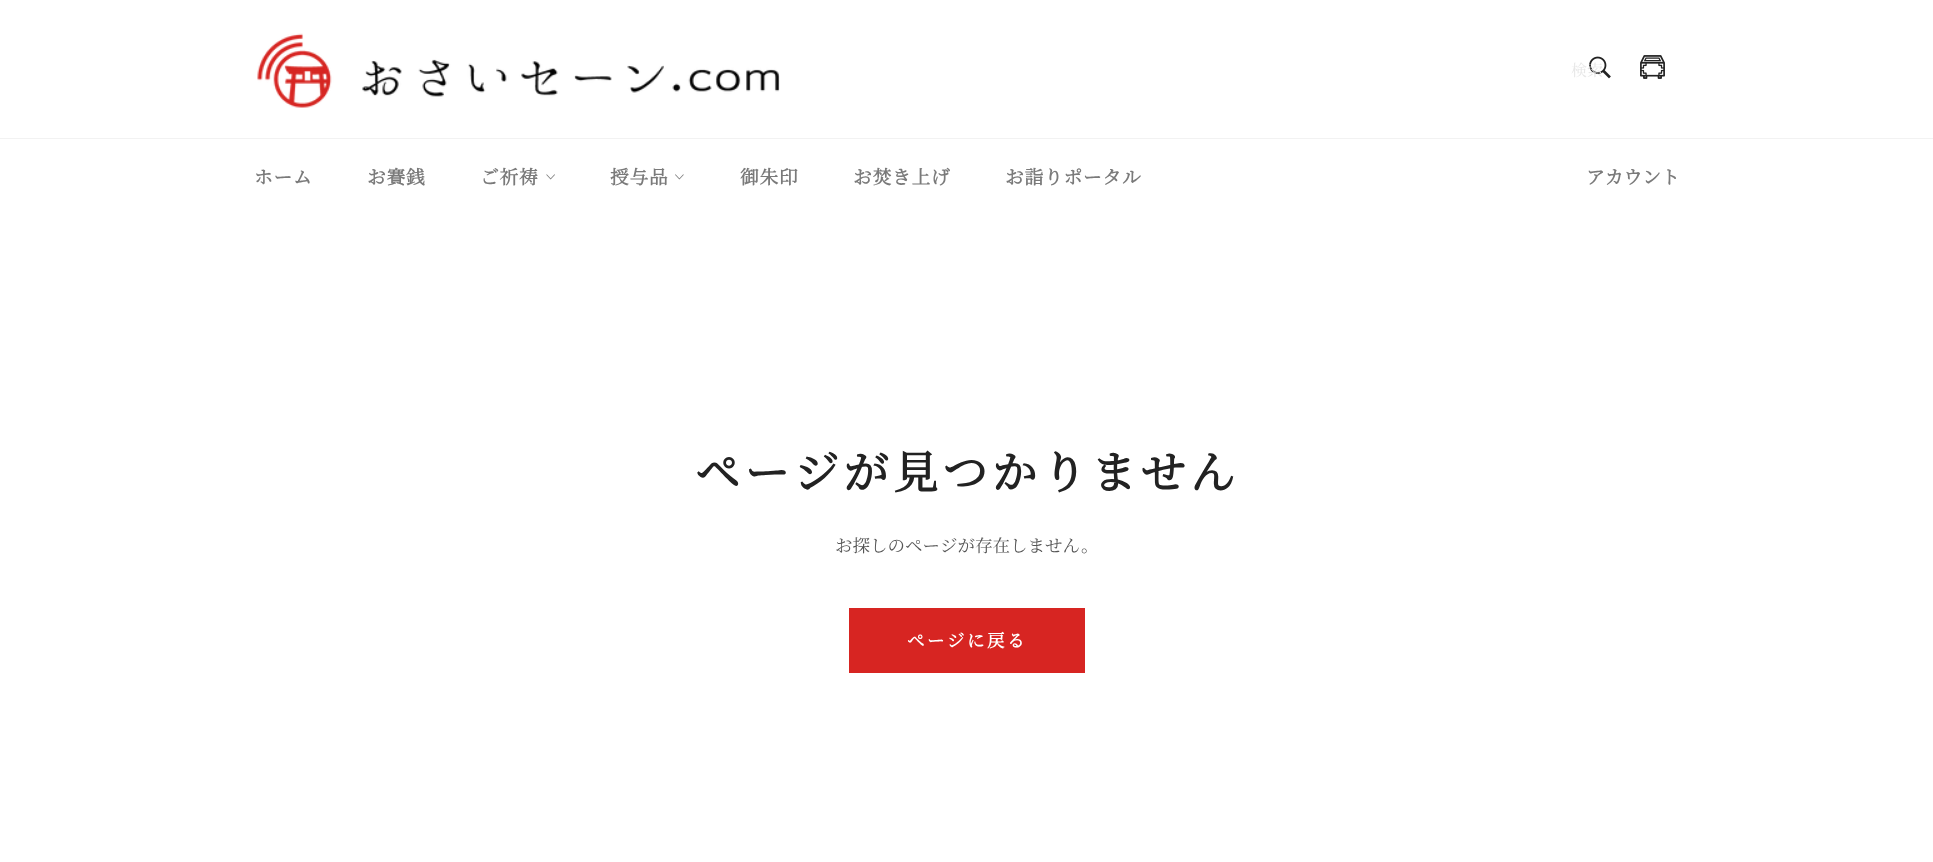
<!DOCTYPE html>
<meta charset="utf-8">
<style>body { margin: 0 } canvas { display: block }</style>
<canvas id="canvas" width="1933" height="862"></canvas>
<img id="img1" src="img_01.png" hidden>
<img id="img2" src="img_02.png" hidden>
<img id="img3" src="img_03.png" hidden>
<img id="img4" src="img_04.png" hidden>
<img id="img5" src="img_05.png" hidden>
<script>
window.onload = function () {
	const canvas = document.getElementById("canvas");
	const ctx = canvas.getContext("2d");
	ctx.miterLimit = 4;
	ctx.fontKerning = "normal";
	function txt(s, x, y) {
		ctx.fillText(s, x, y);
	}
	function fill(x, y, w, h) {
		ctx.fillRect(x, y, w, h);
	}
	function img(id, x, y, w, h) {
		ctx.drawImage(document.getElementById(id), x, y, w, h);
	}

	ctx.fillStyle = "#FFFFFF";
	fill(0, 0, 1933, 862);
	img("img1", 257, 33, 523, 75);
	img("img2", 1589, 56, 22, 23);
	img("img3", 1640, 55, 25, 24);
	ctx.fillStyle = "#F2F2F2";
	fill(0, 138, 1933, 1);
	img("img4", 546, 174, 9, 6);
	img("img5", 675, 174, 9, 6);
	ctx.fillStyle = "#D72522";
	fill(849, 608, 236, 65);
	ctx.font = "200 16px Noto Serif JP";
	ctx.fillStyle = "#E7E7E7";
	txt("検索", 1571, 76);
	ctx.letterSpacing = "0.75px";
	ctx.font = "bold 18.75px Noto Serif JP";
	ctx.fillStyle = "#7A7A7A";
	txt("ホーム", 254, 184);
	txt("お賽銭", 367, 184);
	txt("ご祈祷", 480, 184);
	txt("授与品", 610, 184);
	txt("御朱印", 740, 184);
	txt("お焚き上げ", 853, 184);
	txt("お詣りポータル", 1005, 184);
	ctx.letterSpacing = "0px";
	txt("アカウント", 1586, 184);
	ctx.letterSpacing = "4.5px";
	ctx.font = "bold 45px Noto Serif JP";
	ctx.fillStyle = "#222222";
	txt("ページが見つかりません", 695, 489);
	ctx.letterSpacing = "0px";
	ctx.font = "200 17.5px Noto Serif JP";
	ctx.fillStyle = "#555555";
	txt("お探しのページが存在しません。", 835, 552);
	ctx.letterSpacing = "2.5px";
	ctx.font = "bold 17.5px Noto Serif JP";
	ctx.fillStyle = "#FFFFFF";
	txt("ページに戻る", 907, 647);
};
</script>
